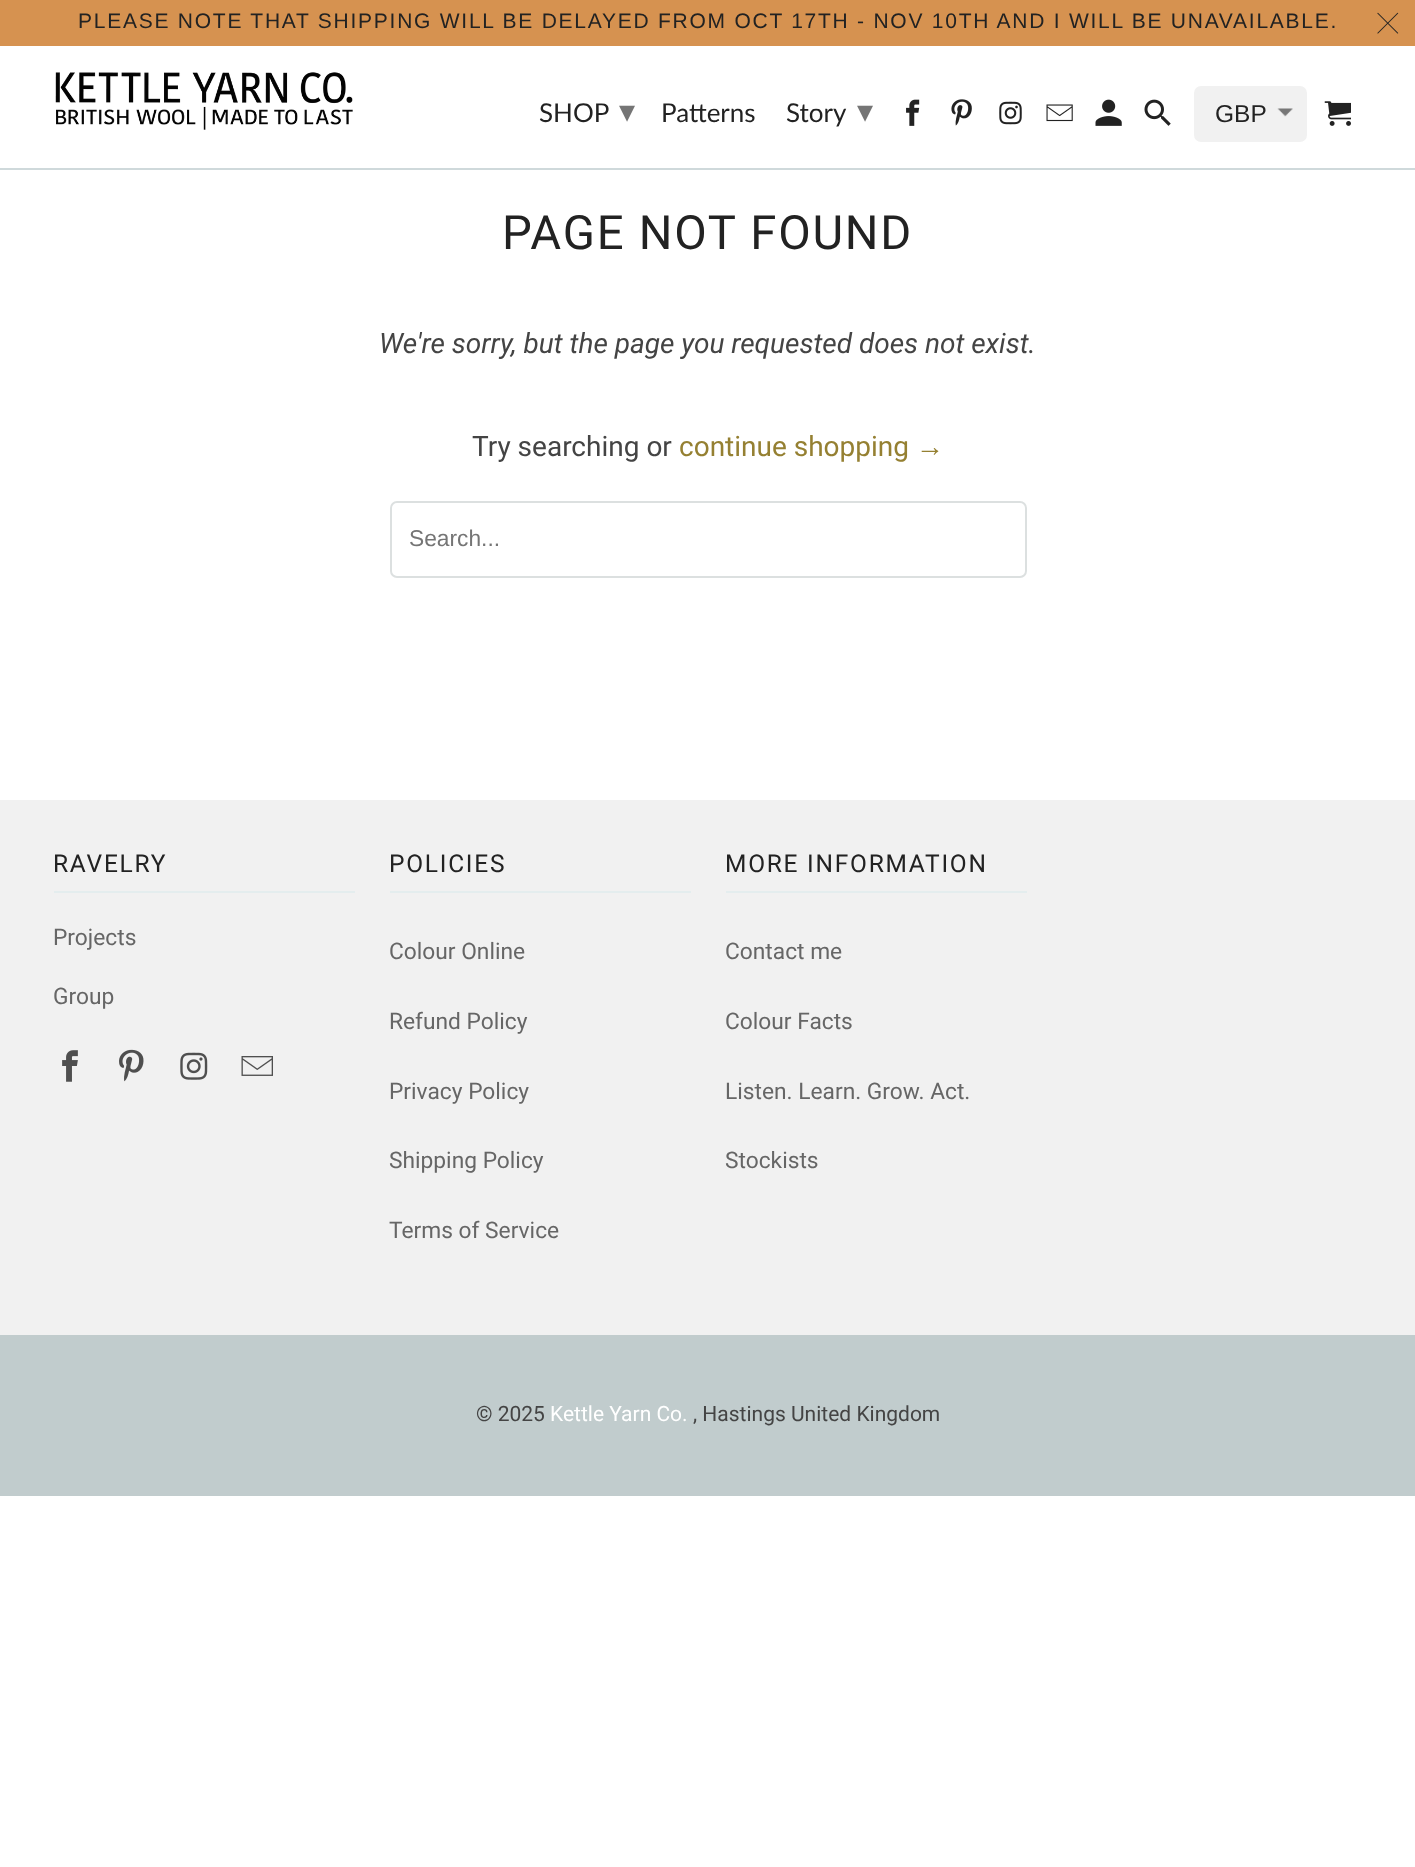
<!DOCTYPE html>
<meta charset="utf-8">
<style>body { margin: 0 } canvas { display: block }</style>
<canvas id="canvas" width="1415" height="1867"></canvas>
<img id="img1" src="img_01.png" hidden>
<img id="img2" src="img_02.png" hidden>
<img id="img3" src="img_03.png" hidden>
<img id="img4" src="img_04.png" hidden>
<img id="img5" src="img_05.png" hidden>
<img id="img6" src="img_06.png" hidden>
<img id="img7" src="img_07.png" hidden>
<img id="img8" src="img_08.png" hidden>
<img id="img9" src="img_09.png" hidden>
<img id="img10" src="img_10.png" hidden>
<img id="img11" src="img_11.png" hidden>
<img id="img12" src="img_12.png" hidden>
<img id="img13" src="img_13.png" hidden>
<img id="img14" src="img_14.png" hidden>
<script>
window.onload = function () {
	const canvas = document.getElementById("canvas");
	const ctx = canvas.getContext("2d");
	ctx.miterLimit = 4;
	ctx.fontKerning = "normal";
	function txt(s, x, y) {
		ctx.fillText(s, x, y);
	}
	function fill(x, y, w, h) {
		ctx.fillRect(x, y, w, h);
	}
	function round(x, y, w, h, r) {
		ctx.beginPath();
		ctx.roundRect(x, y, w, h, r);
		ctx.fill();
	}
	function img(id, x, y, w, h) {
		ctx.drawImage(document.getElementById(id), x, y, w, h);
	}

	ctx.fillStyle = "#FFFFFF";
	fill(0, 0, 1415, 1867);
	ctx.fillStyle = "#CFD9DB";
	fill(0, 168, 1415, 2);
	ctx.fillStyle = "#D69250";
	fill(0, 0, 1415, 46);
	img("img1", 1377, 12, 22, 22);
	img("img2", 55, 72, 298, 58);
	img("img3", 906, 99, 14, 27);
	img("img4", 951, 99, 21, 27);
	img("img5", 999, 101, 23, 24);
	img("img6", 1046, 104, 27, 18);
	img("img7", 1095, 99, 27, 27);
	img("img8", 1144, 99, 27, 27);
	ctx.fillStyle = "#F1F1F1";
	round(1194, 86, 113, 56, 7);
	img("img9", 1277, 108, 16, 9);
	img("img10", 1324, 101, 27, 25);
	ctx.beginPath();
	ctx.roundRect(391, 502, 635, 75, 6);
	ctx.strokeStyle = "#DCE0E0";
	ctx.lineWidth = 2;
	ctx.stroke();
	fill(0, 800, 1415, 535);
	ctx.fillStyle = "#E4EDEE";
	fill(54, 891, 301, 2);
	img("img11", 62, 1050, 16, 32);
	img("img12", 119, 1049, 25, 33);
	img("img13", 180, 1052, 28, 28);
	img("img14", 241, 1056, 32, 20);
	fill(390, 891, 301, 2);
	fill(726, 891, 301, 2);
	ctx.fillStyle = "#C1CCCD";
	fill(0, 1335, 1415, 161);
	ctx.letterSpacing = "1.75px";
	ctx.font = "21px Liberation Sans";
	ctx.fillStyle = "#222222";
	txt("PLEASE NOTE THAT SHIPPING WILL BE DELAYED FROM OCT 17TH - NOV 10TH AND I WILL BE UNAVAILABLE.", 78, 28);
	ctx.letterSpacing = "0px";
	ctx.font = "26px Lato";
	txt("SHOP", 539, 122);
	ctx.font = "32px DejaVu Sans";
	ctx.fillStyle = "#757575";
	txt("▾", 619, 122);
	ctx.font = "26px Lato";
	ctx.fillStyle = "#222222";
	txt("Patterns", 661, 122);
	txt("Story", 786, 122);
	ctx.font = "32px DejaVu Sans";
	ctx.fillStyle = "#757575";
	txt("▾", 857, 122);
	ctx.font = "24.5px Liberation Sans";
	ctx.fillStyle = "#222222";
	txt("GBP", 1215, 122);
	ctx.letterSpacing = "1.75px";
	ctx.font = "47.25px Roboto";
	txt("PAGE NOT FOUND", 502, 249);
	ctx.letterSpacing = "0px";
	ctx.font = "italic 28px Roboto";
	ctx.fillStyle = "#444444";
	txt("We're sorry, but the page you requested does not exist.", 379, 353);
	ctx.font = "28px Roboto";
	txt("Try searching or", 472, 456);
	ctx.fillStyle = "#958032";
	txt("continue shopping", 679, 456);
	ctx.font = "28px Liberation Sans";
	txt("→", 916, 456);
	ctx.font = "22.75px Liberation Sans";
	ctx.fillStyle = "#757575";
	txt("Search...", 409, 546);
	ctx.letterSpacing = "1.75px";
	ctx.font = "24.5px Roboto";
	ctx.fillStyle = "#222222";
	txt("RAVELRY", 53, 872);
	ctx.letterSpacing = "0px";
	ctx.font = "22.75px Roboto";
	ctx.fillStyle = "#666666";
	txt("Projects", 53, 945);
	txt("Group", 53, 1004);
	ctx.letterSpacing = "1.75px";
	ctx.font = "24.5px Roboto";
	ctx.fillStyle = "#222222";
	txt("POLICIES", 389, 872);
	ctx.letterSpacing = "0px";
	ctx.font = "22.75px Roboto";
	ctx.fillStyle = "#666666";
	txt("Colour Online", 389, 959);
	txt("Refund Policy", 389, 1029);
	txt("Privacy Policy", 389, 1099);
	txt("Shipping Policy", 389, 1168);
	txt("Terms of Service", 389, 1238);
	ctx.letterSpacing = "1.75px";
	ctx.font = "24.5px Roboto";
	ctx.fillStyle = "#222222";
	txt("MORE INFORMATION", 725, 872);
	ctx.letterSpacing = "0px";
	ctx.font = "22.75px Roboto";
	ctx.fillStyle = "#666666";
	txt("Contact me", 725, 959);
	txt("Colour Facts", 725, 1029);
	txt("Listen. Learn. Grow. Act.", 725, 1099);
	txt("Stockists", 725, 1168);
	ctx.font = "21px Roboto";
	ctx.fillStyle = "#444444";
	txt("© 2025", 476, 1421);
	ctx.fillStyle = "#FFFFFF";
	txt("Kettle Yarn Co.", 550, 1421);
	ctx.fillStyle = "#444444";
	txt(", Hastings United Kingdom", 693, 1421);
};
</script>
